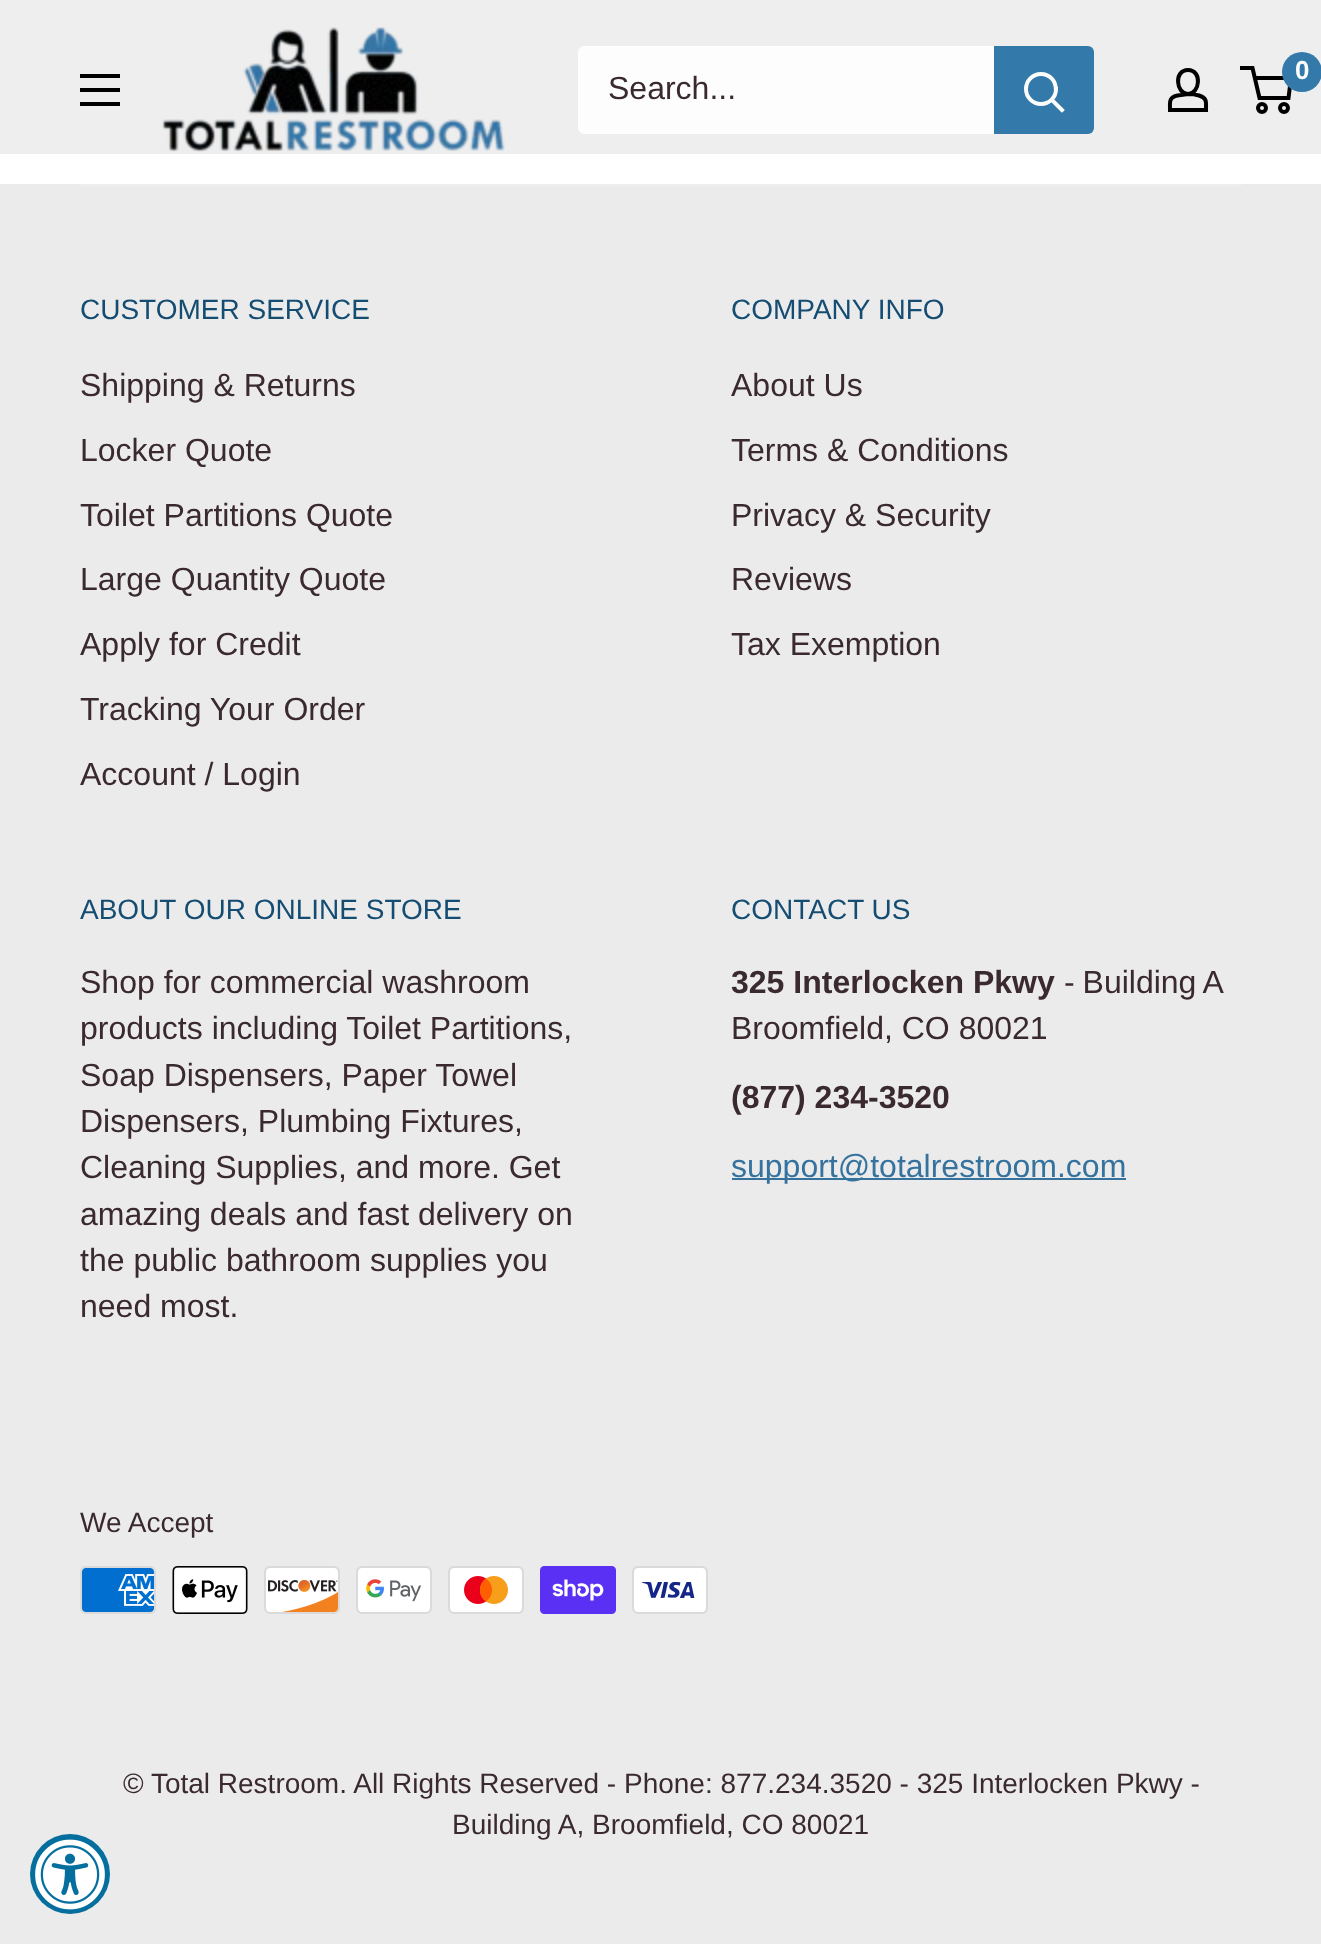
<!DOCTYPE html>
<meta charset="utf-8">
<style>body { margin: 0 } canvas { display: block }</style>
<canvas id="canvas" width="1321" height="1944"></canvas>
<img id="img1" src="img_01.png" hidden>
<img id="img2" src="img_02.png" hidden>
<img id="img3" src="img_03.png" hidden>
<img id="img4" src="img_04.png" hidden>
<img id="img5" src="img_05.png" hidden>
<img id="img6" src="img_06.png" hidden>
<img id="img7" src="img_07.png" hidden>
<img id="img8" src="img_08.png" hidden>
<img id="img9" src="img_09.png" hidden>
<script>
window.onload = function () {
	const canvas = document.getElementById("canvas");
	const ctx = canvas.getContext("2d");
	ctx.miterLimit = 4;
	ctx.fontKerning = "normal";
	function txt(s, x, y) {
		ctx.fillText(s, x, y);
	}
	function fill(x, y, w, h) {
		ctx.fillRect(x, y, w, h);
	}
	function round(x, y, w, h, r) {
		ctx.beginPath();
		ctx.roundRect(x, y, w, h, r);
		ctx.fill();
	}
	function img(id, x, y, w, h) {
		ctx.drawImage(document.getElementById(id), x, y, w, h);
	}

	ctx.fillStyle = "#FFFFFF";
	fill(0, 0, 1321, 1944);
	ctx.fillStyle = "#EEEEEE";
	fill(0, 0, 1321, 154);
	img("img1", 162, 27, 343, 125);
	ctx.beginPath();
	ctx.moveTo(1188, 94);
	ctx.bezierCurveTo(1192, 94, 1195.5, 94.5, 1199, 95.5);
	ctx.bezierCurveTo(1207.5, 98, 1206, 102.5, 1206, 110);
	ctx.lineTo(1170, 110);
	ctx.bezierCurveTo(1170, 102, 1168.5, 97.5, 1177.5, 95.5);
	ctx.closePath();
	ctx.moveTo(1188, 94);
	ctx.bezierCurveTo(1176, 94, 1173.5, 70, 1188, 70);
	ctx.bezierCurveTo(1202.5, 70, 1200, 94, 1188, 94);
	ctx.closePath();
	ctx.strokeStyle = "#000000";
	ctx.lineWidth = 4;
	ctx.stroke();
	ctx.beginPath();
	ctx.arc(1262, 108, 4, 0, Math.PI * 2);
	ctx.stroke();
	ctx.beginPath();
	ctx.arc(1284, 108, 4, 0, Math.PI * 2);
	ctx.stroke();
	ctx.beginPath();
	ctx.moveTo(1254.5, 78);
	ctx.lineTo(1291, 78);
	ctx.lineTo(1288.5, 98);
	ctx.lineTo(1259.5, 98);
	ctx.lineTo(1252.5, 68);
	ctx.lineTo(1240, 68);
	ctx.stroke();
	ctx.fillStyle = "#3379A9";
	ctx.beginPath();
	ctx.arc(1302, 72, 20, 0, Math.PI * 2);
	ctx.fill();
	ctx.fillStyle = "#000000";
	ctx.beginPath();
	ctx.moveTo(80, 102);
	ctx.lineTo(120, 102);
	ctx.lineTo(120, 106);
	ctx.lineTo(80, 106);
	ctx.closePath();
	ctx.moveTo(80, 74);
	ctx.lineTo(120, 74);
	ctx.lineTo(120, 78);
	ctx.lineTo(80, 78);
	ctx.closePath();
	ctx.moveTo(80, 88);
	ctx.lineTo(120, 88);
	ctx.lineTo(120, 92);
	ctx.lineTo(80, 92);
	ctx.closePath();
	ctx.fill("evenodd");
	ctx.fillStyle = "#FDFDFD";
	round(578, 46, 516, 88, 6);
	ctx.fillStyle = "#3379A9";
	ctx.beginPath();
	ctx.roundRect(994, 46, 100, 88, [0, 6, 6, 0]);
	ctx.fill();
	ctx.beginPath();
	ctx.moveTo(1062, 110);
	ctx.lineTo(1052, 100);
	ctx.strokeStyle = "#FDFDFD";
	ctx.lineCap = "square";
	ctx.stroke();
	ctx.beginPath();
	ctx.arc(1041, 89, 15, 0, Math.PI * 2);
	ctx.stroke();
	ctx.fillStyle = "#EBEBEB";
	fill(0, 184, 1321, 1760);
	ctx.fillStyle = "#EEEEEE";
	fill(80, 184, 1162, 2);
	ctx.fillStyle = "#35739E";
	fill(732, 1178, 394, 2);
	img("img2", 80, 1566, 76, 48);
	img("img3", 172, 1566, 76, 48);
	img("img4", 264, 1566, 76, 48);
	img("img5", 356, 1566, 76, 48);
	img("img6", 448, 1566, 76, 48);
	img("img7", 540, 1566, 76, 48);
	img("img8", 632, 1566, 76, 48);
	ctx.fillStyle = "#046E9E";
	ctx.beginPath();
	ctx.arc(70, 1874, 40, 0, Math.PI * 2);
	ctx.fill();
	img("img9", 35, 1839, 70, 71);
	ctx.font = "bold 26px Liberation Sans";
	ctx.fillStyle = "#FDFDFD";
	txt("0", 1295, 79);
	ctx.font = "32px Liberation Sans";
	ctx.fillStyle = "#3A2A2F";
	txt("Search...", 608, 99);
	ctx.font = "28px Liberation Sans";
	ctx.fillStyle = "#154C72";
	txt("CUSTOMER SERVICE", 80, 319);
	ctx.font = "32px Liberation Sans";
	ctx.fillStyle = "#3A2A2F";
	txt("Shipping & Returns", 80, 396);
	txt("Locker Quote", 80, 461);
	txt("Toilet Partitions Quote", 80, 526);
	txt("Large Quantity Quote", 80, 590);
	txt("Apply for Credit", 80, 655);
	txt("Tracking Your Order", 80, 720);
	txt("Account / Login", 80, 785);
	ctx.font = "28px Liberation Sans";
	ctx.fillStyle = "#154C72";
	txt("COMPANY INFO", 731, 319);
	ctx.font = "32px Liberation Sans";
	ctx.fillStyle = "#3A2A2F";
	txt("About Us", 731, 396);
	txt("Terms & Conditions", 731, 461);
	txt("Privacy & Security", 731, 526);
	txt("Reviews", 731, 590);
	txt("Tax Exemption", 731, 655);
	ctx.font = "28px Liberation Sans";
	ctx.fillStyle = "#154C72";
	txt("ABOUT OUR ONLINE STORE", 80, 919);
	ctx.font = "32px Liberation Sans";
	ctx.fillStyle = "#3A2A2F";
	txt("Shop for commercial washroom", 80, 993);
	txt("products including Toilet Partitions,", 80, 1039);
	txt("Soap Dispensers, Paper Towel", 80, 1086);
	txt("Dispensers, Plumbing Fixtures,", 80, 1132);
	txt("Cleaning Supplies, and more. Get", 80, 1178);
	txt("amazing deals and fast delivery on", 80, 1225);
	txt("the public bathroom supplies you", 80, 1271);
	txt("need most.", 80, 1317);
	ctx.font = "28px Liberation Sans";
	ctx.fillStyle = "#154C72";
	txt("CONTACT US", 731, 919);
	ctx.font = "bold 32px Liberation Sans";
	ctx.fillStyle = "#3A2A2F";
	txt("325 Interlocken Pkwy", 731, 993);
	ctx.wordSpacing = "-1px";
	ctx.font = "32px Liberation Sans";
	txt("- Building A", 1064, 993);
	ctx.wordSpacing = "0px";
	txt("Broomfield, CO 80021", 731, 1039);
	ctx.font = "bold 32px Liberation Sans";
	txt("(877) 234-3520", 731, 1108);
	ctx.font = "32px Liberation Sans";
	ctx.fillStyle = "#35739E";
	txt("support@totalrestroom.com", 731, 1177);
	ctx.font = "28px Liberation Sans";
	ctx.fillStyle = "#3A2A2F";
	txt("We Accept", 80, 1532);
	txt("© Total Restroom. All Rights Reserved - Phone: 877.234.3520 - 325 Interlocken Pkwy -", 123, 1793);
	txt("Building A, Broomfield, CO 80021", 452, 1834);
};
</script>
